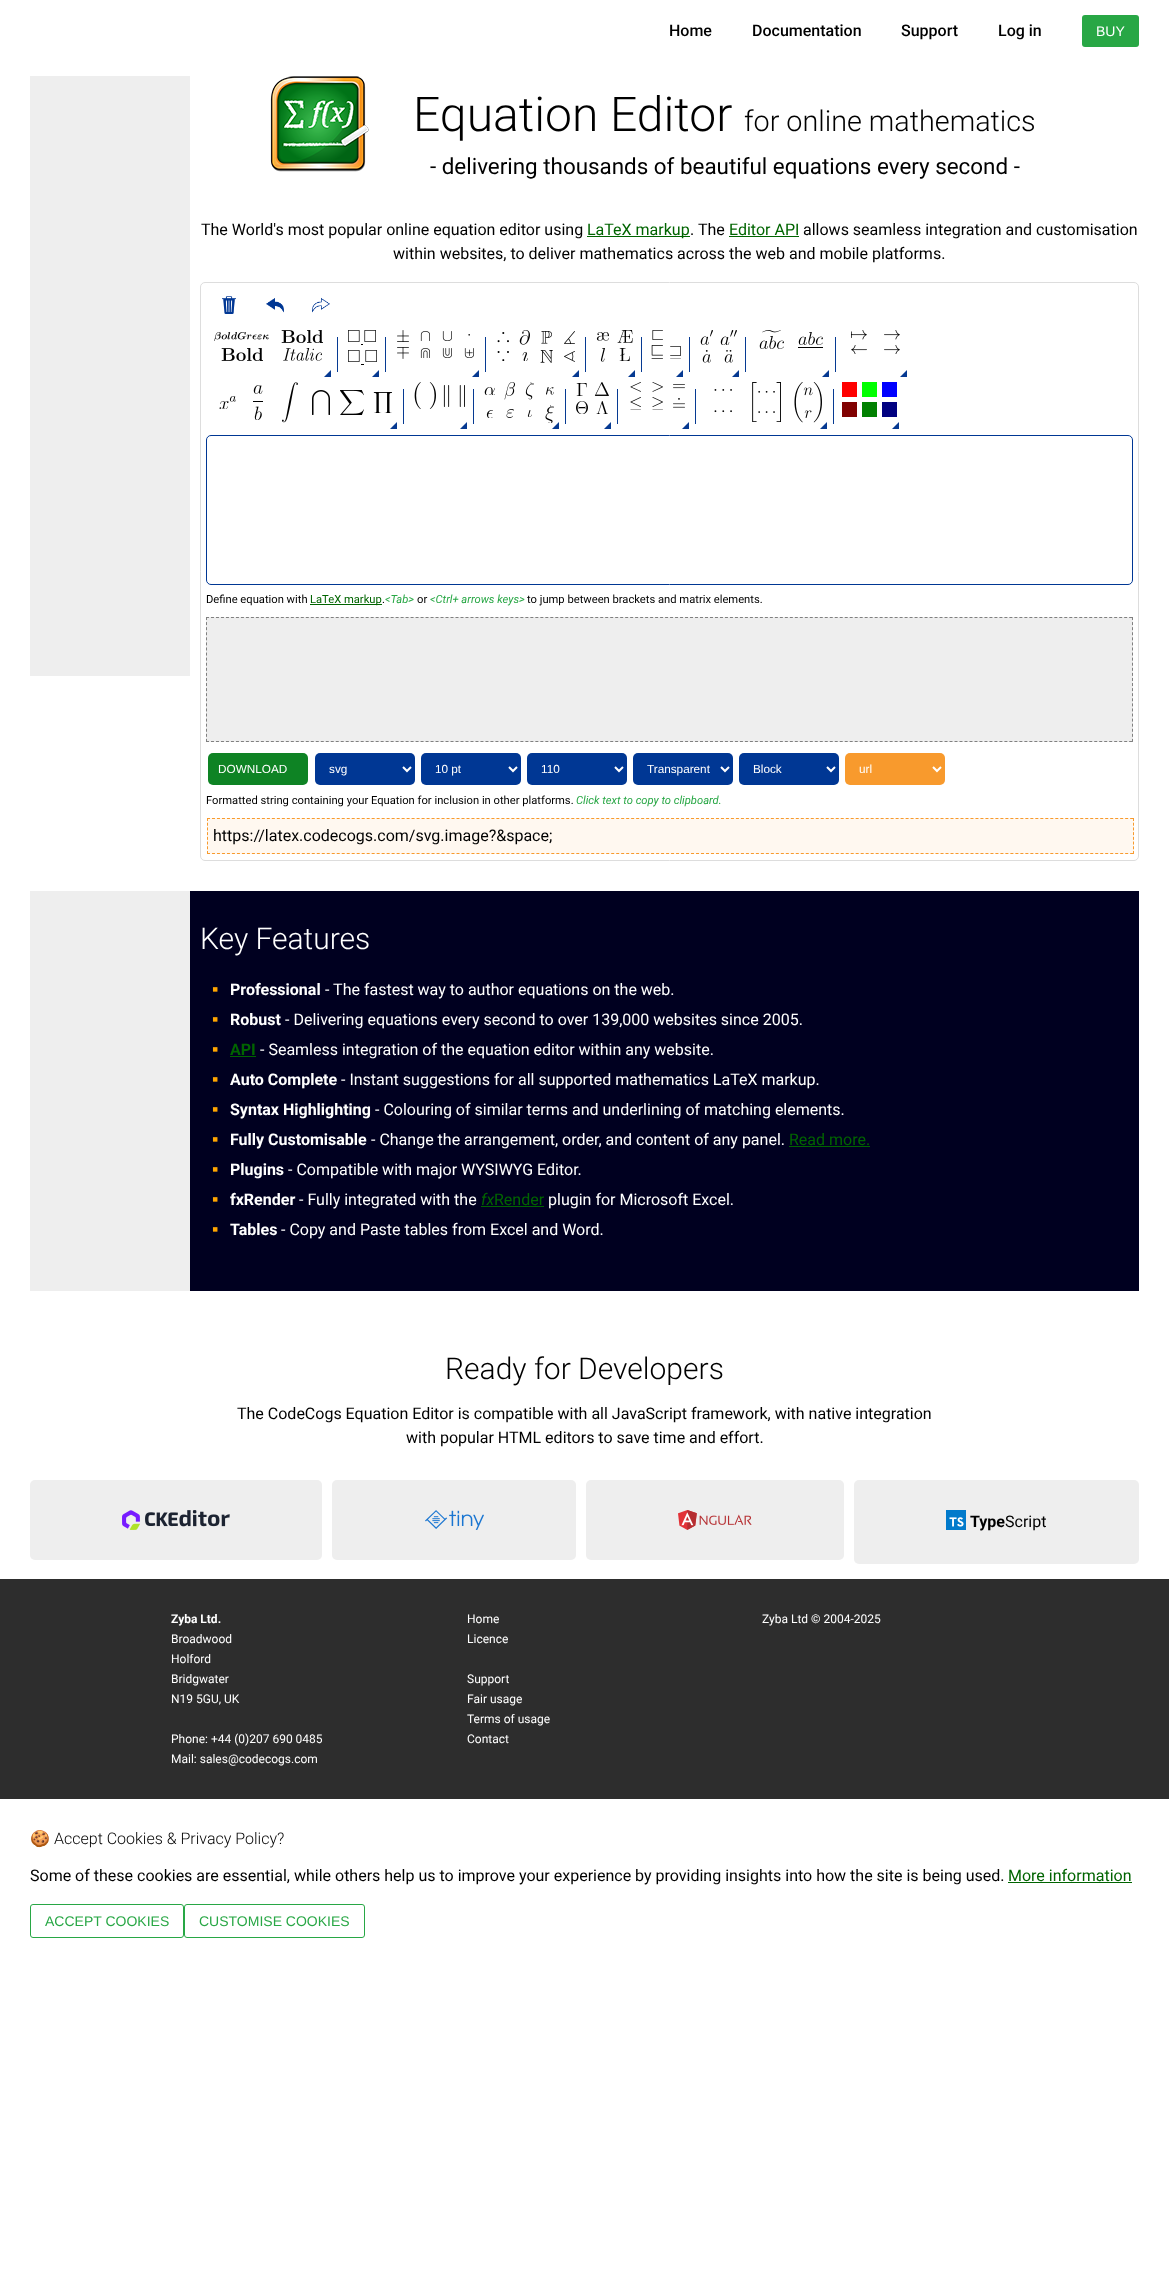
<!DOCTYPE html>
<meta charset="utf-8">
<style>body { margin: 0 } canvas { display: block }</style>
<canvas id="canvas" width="1169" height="2289"></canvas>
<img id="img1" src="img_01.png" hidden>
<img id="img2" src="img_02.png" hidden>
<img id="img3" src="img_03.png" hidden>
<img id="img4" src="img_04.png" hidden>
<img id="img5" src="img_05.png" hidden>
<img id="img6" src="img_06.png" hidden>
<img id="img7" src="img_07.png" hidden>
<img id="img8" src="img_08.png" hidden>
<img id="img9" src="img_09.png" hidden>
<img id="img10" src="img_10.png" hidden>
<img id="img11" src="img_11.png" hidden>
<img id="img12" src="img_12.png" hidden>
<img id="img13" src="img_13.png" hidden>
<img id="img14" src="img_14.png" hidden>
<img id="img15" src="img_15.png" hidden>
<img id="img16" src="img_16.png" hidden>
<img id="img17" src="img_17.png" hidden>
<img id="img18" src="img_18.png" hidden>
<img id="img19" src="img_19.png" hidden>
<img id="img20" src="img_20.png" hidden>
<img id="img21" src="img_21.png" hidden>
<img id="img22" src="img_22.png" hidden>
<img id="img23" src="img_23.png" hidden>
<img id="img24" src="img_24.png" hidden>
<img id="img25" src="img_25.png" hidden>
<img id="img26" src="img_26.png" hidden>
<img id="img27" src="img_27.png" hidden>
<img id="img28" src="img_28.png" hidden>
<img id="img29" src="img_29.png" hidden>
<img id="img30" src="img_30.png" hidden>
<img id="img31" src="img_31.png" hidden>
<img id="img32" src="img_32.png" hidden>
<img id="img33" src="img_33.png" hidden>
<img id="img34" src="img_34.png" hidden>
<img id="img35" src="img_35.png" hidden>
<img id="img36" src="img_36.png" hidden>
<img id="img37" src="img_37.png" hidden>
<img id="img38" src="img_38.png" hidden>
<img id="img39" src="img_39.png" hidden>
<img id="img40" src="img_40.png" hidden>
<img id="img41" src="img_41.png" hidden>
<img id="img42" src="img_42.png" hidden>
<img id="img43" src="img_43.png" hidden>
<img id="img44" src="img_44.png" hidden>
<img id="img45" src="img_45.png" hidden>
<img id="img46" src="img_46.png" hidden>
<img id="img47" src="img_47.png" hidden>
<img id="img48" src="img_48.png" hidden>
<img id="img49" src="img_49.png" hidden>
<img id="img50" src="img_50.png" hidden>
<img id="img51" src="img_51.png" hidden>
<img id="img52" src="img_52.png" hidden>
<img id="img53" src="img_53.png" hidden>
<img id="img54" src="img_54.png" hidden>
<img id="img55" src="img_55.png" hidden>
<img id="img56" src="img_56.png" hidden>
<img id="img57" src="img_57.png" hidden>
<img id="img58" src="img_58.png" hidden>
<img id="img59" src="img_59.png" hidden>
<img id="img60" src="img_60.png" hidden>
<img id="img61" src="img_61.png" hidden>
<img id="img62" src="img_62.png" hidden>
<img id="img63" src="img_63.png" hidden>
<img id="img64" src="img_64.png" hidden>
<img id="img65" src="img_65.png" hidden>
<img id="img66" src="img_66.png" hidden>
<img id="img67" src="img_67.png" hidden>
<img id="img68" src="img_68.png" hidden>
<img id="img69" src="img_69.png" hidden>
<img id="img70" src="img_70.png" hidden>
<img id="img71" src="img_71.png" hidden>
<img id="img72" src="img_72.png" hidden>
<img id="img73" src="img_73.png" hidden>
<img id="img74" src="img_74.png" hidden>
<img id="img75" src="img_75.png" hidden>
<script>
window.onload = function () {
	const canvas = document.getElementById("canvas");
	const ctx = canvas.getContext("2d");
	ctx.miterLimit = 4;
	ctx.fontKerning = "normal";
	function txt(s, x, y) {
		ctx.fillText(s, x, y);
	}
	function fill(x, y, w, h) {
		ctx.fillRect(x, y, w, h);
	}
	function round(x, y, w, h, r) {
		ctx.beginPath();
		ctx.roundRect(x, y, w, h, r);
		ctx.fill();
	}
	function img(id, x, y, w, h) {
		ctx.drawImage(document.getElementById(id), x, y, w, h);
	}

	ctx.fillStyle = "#FFFFFF";
	fill(0, 0, 1169, 2289);
	ctx.fillStyle = "#28A745";
	round(1082, 15, 57, 32, 3);
	ctx.fillStyle = "#EEEEEE";
	fill(30, 76, 160, 600);
	img("img1", 270, 76, 99, 96);
	ctx.fillStyle = "#006400";
	fill(587, 236, 103, 1);
	fill(729, 236, 70, 1);
	ctx.beginPath();
	ctx.roundRect(200.5, 282.5, 938, 578, 4.5);
	ctx.strokeStyle = "#DDDDDD";
	ctx.stroke();
	img("img2", 222, 296, 14, 18);
	img("img3", 266, 298, 18, 15);
	img("img4", 312, 297, 18, 16);
	img("img5", 214, 332, 55, 9);
	img("img6", 281, 330, 42, 13);
	img("img6", 221, 348, 42, 13);
	img("img7", 283, 348, 39, 13);
	ctx.fillStyle = "#063A92";
	ctx.beginPath();
	ctx.moveTo(331, 370);
	ctx.lineTo(331, 377);
	ctx.lineTo(324, 377);
	ctx.closePath();
	ctx.fill();
	fill(337, 337, 1, 35);
	img("img8", 348, 330, 28, 15);
	img("img9", 348, 350, 29, 15);
	ctx.beginPath();
	ctx.moveTo(379, 370);
	ctx.lineTo(379, 377);
	ctx.lineTo(372, 377);
	ctx.closePath();
	ctx.fill();
	fill(385, 337, 1, 35);
	img("img10", 397, 330, 12, 12);
	img("img11", 420, 331, 10, 10);
	img("img12", 442, 331, 10, 10);
	img("img13", 468, 334, 2, 2);
	img("img14", 397, 347, 12, 12);
	img("img15", 420, 348, 10, 10);
	img("img16", 442, 348, 10, 10);
	img("img17", 464, 348, 10, 10);
	ctx.beginPath();
	ctx.moveTo(479, 370);
	ctx.lineTo(479, 377);
	ctx.lineTo(472, 377);
	ctx.closePath();
	ctx.fill();
	fill(485, 337, 1, 35);
	img("img18", 497, 332, 12, 11);
	img("img19", 519, 330, 11, 15);
	img("img20", 541, 331, 11, 13);
	img("img21", 564, 331, 11, 13);
	img("img22", 497, 351, 12, 10);
	img("img23", 522, 352, 6, 9);
	img("img24", 540, 350, 13, 13);
	img("img25", 564, 351, 11, 11);
	ctx.beginPath();
	ctx.moveTo(579, 370);
	ctx.lineTo(579, 377);
	ctx.lineTo(572, 377);
	ctx.closePath();
	ctx.fill();
	fill(585, 337, 1, 35);
	img("img26", 596, 332, 13, 9);
	img("img27", 617, 330, 16, 13);
	img("img28", 600, 348, 5, 14);
	img("img29", 619, 348, 11, 13);
	ctx.beginPath();
	ctx.moveTo(635, 370);
	ctx.lineTo(635, 377);
	ctx.lineTo(628, 377);
	ctx.closePath();
	ctx.fill();
	fill(641, 337, 1, 35);
	img("img30", 652, 330, 11, 10);
	img("img31", 651, 345, 12, 14);
	img("img32", 670, 346, 11, 13);
	ctx.beginPath();
	ctx.moveTo(683, 370);
	ctx.lineTo(683, 377);
	ctx.lineTo(676, 377);
	ctx.closePath();
	ctx.fill();
	fill(689, 337, 1, 35);
	img("img33", 700, 330, 13, 15);
	img("img34", 720, 330, 17, 15);
	img("img35", 702, 350, 9, 13);
	img("img36", 724, 350, 9, 13);
	ctx.beginPath();
	ctx.moveTo(739, 370);
	ctx.lineTo(739, 377);
	ctx.lineTo(732, 377);
	ctx.closePath();
	ctx.fill();
	fill(745, 337, 1, 35);
	img("img37", 759, 330, 25, 19);
	img("img38", 798, 332, 25, 16);
	ctx.beginPath();
	ctx.moveTo(829, 370);
	ctx.lineTo(829, 377);
	ctx.lineTo(822, 377);
	ctx.closePath();
	ctx.fill();
	fill(835, 337, 1, 35);
	img("img39", 851, 330, 16, 10);
	img("img40", 884, 330, 16, 10);
	img("img41", 851, 345, 16, 9);
	img("img42", 884, 345, 16, 9);
	ctx.beginPath();
	ctx.moveTo(907, 370);
	ctx.lineTo(907, 377);
	ctx.lineTo(900, 377);
	ctx.closePath();
	ctx.fill();
	img("img43", 219, 396, 17, 13);
	img("img44", 253, 385, 10, 35);
	img("img45", 282, 382, 16, 41);
	img("img46", 312, 390, 18, 25);
	img("img47", 340, 390, 24, 25);
	img("img48", 373, 392, 19, 21);
	ctx.beginPath();
	ctx.moveTo(397, 422);
	ctx.lineTo(397, 429);
	ctx.lineTo(390, 429);
	ctx.closePath();
	ctx.fill();
	fill(403, 389, 1, 35);
	img("img49", 414, 382, 22, 27);
	img("img50", 443, 385, 22, 22);
	ctx.beginPath();
	ctx.moveTo(467, 422);
	ctx.lineTo(467, 429);
	ctx.lineTo(460, 429);
	ctx.closePath();
	ctx.fill();
	fill(473, 389, 1, 35);
	img("img51", 484, 387, 11, 8);
	img("img52", 504, 382, 11, 18);
	img("img53", 525, 382, 9, 18);
	img("img54", 546, 387, 8, 8);
	img("img55", 486, 410, 7, 8);
	img("img56", 506, 409, 8, 9);
	img("img57", 527, 410, 5, 7);
	img("img58", 545, 405, 9, 18);
	ctx.beginPath();
	ctx.moveTo(559, 422);
	ctx.lineTo(559, 429);
	ctx.lineTo(552, 429);
	ctx.closePath();
	ctx.fill();
	fill(565, 389, 1, 35);
	img("img59", 576, 383, 11, 13);
	img("img60", 594, 382, 15, 14);
	img("img61", 576, 401, 12, 13);
	img("img62", 596, 401, 12, 13);
	ctx.beginPath();
	ctx.moveTo(611, 422);
	ctx.lineTo(611, 429);
	ctx.lineTo(604, 429);
	ctx.closePath();
	ctx.fill();
	fill(617, 389, 1, 35);
	img("img63", 630, 382, 11, 10);
	img("img64", 652, 382, 11, 10);
	img("img65", 673, 384, 12, 5);
	img("img66", 630, 397, 11, 13);
	img("img67", 652, 397, 11, 13);
	img("img68", 673, 398, 12, 10);
	ctx.beginPath();
	ctx.moveTo(689, 422);
	ctx.lineTo(689, 429);
	ctx.lineTo(682, 429);
	ctx.closePath();
	ctx.fill();
	fill(695, 389, 1, 35);
	img("img69", 714, 389, 18, 24);
	img("img70", 752, 382, 29, 40);
	img("img71", 794, 382, 28, 41);
	ctx.beginPath();
	ctx.moveTo(827, 422);
	ctx.lineTo(827, 429);
	ctx.lineTo(820, 429);
	ctx.closePath();
	ctx.fill();
	fill(833, 389, 1, 35);
	ctx.fillStyle = "#FF0000";
	fill(842, 382, 15, 15);
	ctx.fillStyle = "#00FF00";
	fill(862, 382, 15, 15);
	ctx.fillStyle = "#0000FF";
	fill(882, 382, 15, 15);
	ctx.fillStyle = "#800000";
	fill(842, 402, 15, 15);
	ctx.fillStyle = "#008000";
	fill(862, 402, 15, 15);
	ctx.fillStyle = "#000080";
	fill(882, 402, 15, 15);
	ctx.fillStyle = "#063A92";
	ctx.beginPath();
	ctx.moveTo(899, 422);
	ctx.lineTo(899, 429);
	ctx.lineTo(892, 429);
	ctx.closePath();
	ctx.fill();
	ctx.beginPath();
	ctx.roundRect(206.5, 435.5, 926, 149, 4.5);
	ctx.strokeStyle = "#003794";
	ctx.stroke();
	ctx.fillStyle = "#006400";
	fill(310, 604, 72, 1);
	ctx.fillStyle = "#EEEEEE";
	fill(206, 617, 927, 125);
	ctx.beginPath();
	ctx.moveTo(206, 617.5);
	ctx.lineTo(1133, 617.5);
	ctx.strokeStyle = "#808080";
	ctx.setLineDash([3, 1.99]);
	ctx.stroke();
	ctx.beginPath();
	ctx.moveTo(1132.5, 617);
	ctx.lineTo(1132.5, 742);
	ctx.setLineDash([3, 2.08]);
	ctx.stroke();
	ctx.beginPath();
	ctx.moveTo(206, 741.5);
	ctx.lineTo(1133, 741.5);
	ctx.setLineDash([3, 1.99]);
	ctx.stroke();
	ctx.beginPath();
	ctx.moveTo(206.5, 617);
	ctx.lineTo(206.5, 742);
	ctx.setLineDash([3, 2.08]);
	ctx.stroke();
	ctx.fillStyle = "#0E8324";
	round(208, 753, 100, 32, 5);
	ctx.fillStyle = "#003794";
	round(315, 753, 100, 32, 5);
	ctx.beginPath();
	ctx.moveTo(403, 767);
	ctx.lineTo(407, 771);
	ctx.lineTo(411, 767);
	ctx.strokeStyle = "#FFFFFF";
	ctx.lineWidth = 2;
	ctx.setLineDash([]);
	ctx.stroke();
	round(421, 753, 100, 32, 5);
	ctx.beginPath();
	ctx.moveTo(509, 767);
	ctx.lineTo(513, 771);
	ctx.lineTo(517, 767);
	ctx.stroke();
	round(527, 753, 100, 32, 5);
	ctx.beginPath();
	ctx.moveTo(615, 767);
	ctx.lineTo(619, 771);
	ctx.lineTo(623, 767);
	ctx.stroke();
	round(633, 753, 100, 32, 5);
	ctx.beginPath();
	ctx.moveTo(721, 767);
	ctx.lineTo(725, 771);
	ctx.lineTo(729, 767);
	ctx.stroke();
	round(739, 753, 100, 32, 5);
	ctx.beginPath();
	ctx.moveTo(827, 767);
	ctx.lineTo(831, 771);
	ctx.lineTo(835, 767);
	ctx.stroke();
	ctx.fillStyle = "#F89A2D";
	round(845, 753, 100, 32, 5);
	ctx.beginPath();
	ctx.moveTo(933, 767);
	ctx.lineTo(937, 771);
	ctx.lineTo(941, 767);
	ctx.stroke();
	ctx.fillStyle = "#FFF8F0";
	fill(207, 818, 927, 36);
	ctx.beginPath();
	ctx.moveTo(207, 818.5);
	ctx.lineTo(1134, 818.5);
	ctx.strokeStyle = "#F89A2D";
	ctx.lineWidth = 1;
	ctx.setLineDash([3, 1.99]);
	ctx.stroke();
	ctx.beginPath();
	ctx.moveTo(1133.5, 818);
	ctx.lineTo(1133.5, 854);
	ctx.setLineDash([3, 1.71]);
	ctx.stroke();
	ctx.beginPath();
	ctx.moveTo(207, 853.5);
	ctx.lineTo(1134, 853.5);
	ctx.setLineDash([3, 1.99]);
	ctx.stroke();
	ctx.beginPath();
	ctx.moveTo(207.5, 818);
	ctx.lineTo(207.5, 854);
	ctx.setLineDash([3, 1.71]);
	ctx.stroke();
	ctx.fillStyle = "#000020";
	fill(190, 891, 949, 400);
	ctx.fillStyle = "#EEEEEE";
	fill(30, 891, 160, 400);
	ctx.fillStyle = "#006400";
	fill(230, 1056, 26, 1);
	fill(789, 1146, 81, 1);
	fill(481, 1206, 63, 1);
	ctx.fillStyle = "#EEEEEE";
	round(30, 1480, 292, 80, 5);
	img("img72", 122, 1510, 108, 20);
	round(332, 1480, 244, 80, 5);
	img("img73", 425, 1510, 59, 20);
	round(586, 1480, 258, 80, 5);
	img("img74", 678, 1510, 74, 20);
	round(854, 1480, 285, 84, 5);
	img("img75", 946, 1510, 20, 20);
	ctx.fillStyle = "#2D2D2D";
	fill(0, 1579, 1169, 220);
	ctx.fillStyle = "#006400";
	fill(1008, 1882, 124, 1);
	ctx.beginPath();
	ctx.roundRect(30.5, 1904.5, 153, 33, 2.5);
	ctx.strokeStyle = "#28A745";
	ctx.setLineDash([]);
	ctx.stroke();
	ctx.beginPath();
	ctx.roundRect(184.5, 1904.5, 180, 33, 2.5);
	ctx.stroke();
	ctx.font = "500 16px Roboto";
	ctx.fillStyle = "#000000";
	txt("Home", 669, 36);
	txt("Documentation", 752, 36);
	txt("Support", 901, 36);
	txt("Log in", 998, 36);
	ctx.font = "14px Liberation Sans";
	ctx.fillStyle = "#FFFFFF";
	txt("BUY", 1096, 36);
	ctx.font = "300 48px Roboto";
	ctx.fillStyle = "#000000";
	txt("Equation Editor", 413, 131);
	ctx.font = "300 28.75px Roboto";
	txt("for online mathematics", 744, 131);
	ctx.font = "22.4px Roboto";
	txt("- delivering thousands of beautiful equations every second -", 430, 174);
	ctx.font = "16px Roboto";
	txt("The World's most popular online equation editor using", 201, 235);
	ctx.fillStyle = "#006400";
	txt("LaTeX markup", 587, 235);
	ctx.fillStyle = "#000000";
	txt(". The", 690, 235);
	ctx.fillStyle = "#006400";
	txt("Editor API", 729, 235);
	ctx.fillStyle = "#000000";
	txt("allows seamless integration and customisation", 803, 235);
	txt("within websites, to deliver mathematics across the web and mobile platforms.", 393, 259);
	ctx.font = "11.2px Roboto";
	txt("Define equation with", 206, 603);
	ctx.fillStyle = "#006400";
	txt("LaTeX markup", 310, 603);
	ctx.fillStyle = "#000000";
	txt(".", 382, 603);
	ctx.font = "italic 11.2px Roboto";
	ctx.fillStyle = "#28A745";
	txt("<Tab>", 385, 603);
	ctx.font = "11.2px Roboto";
	ctx.fillStyle = "#000000";
	txt("or", 417, 603);
	ctx.font = "italic 11.2px Roboto";
	ctx.fillStyle = "#28A745";
	txt("<Ctrl+ arrows keys>", 430, 603);
	ctx.font = "11.2px Roboto";
	ctx.fillStyle = "#000000";
	txt("to jump between brackets and matrix elements.", 527, 603);
	ctx.font = "11.75px Liberation Sans";
	ctx.fillStyle = "#FFFFFF";
	txt("DOWNLOAD", 218, 773);
	txt("svg", 329, 773);
	txt("10 pt", 435, 773);
	txt("110", 541, 773);
	txt("Transparent", 647, 773);
	txt("Block", 753, 773);
	txt("url", 859, 773);
	ctx.font = "11.2px Roboto";
	ctx.fillStyle = "#000000";
	txt("Formatted string containing your Equation for inclusion in other platforms.", 206, 804);
	ctx.font = "italic 11.2px Roboto";
	ctx.fillStyle = "#28A745";
	txt("Click text to copy to clipboard.", 576, 804);
	ctx.font = "16px Roboto";
	ctx.fillStyle = "#000000";
	txt("https://latex.codecogs.com/svg.image?&space;", 213, 841);
	ctx.font = "300 30px Roboto";
	ctx.fillStyle = "#FFFFFF";
	txt("Key Features", 200, 949);
	ctx.font = "bold 18px Liberation Sans";
	ctx.fillStyle = "#FFA500";
	txt("▪", 212, 995);
	ctx.font = "bold 16px Roboto";
	ctx.fillStyle = "#FFFFFF";
	txt("Professional", 230, 995);
	ctx.font = "16px Roboto";
	txt("- The fastest way to author equations on the web.", 325, 995);
	ctx.font = "bold 18px Liberation Sans";
	ctx.fillStyle = "#FFA500";
	txt("▪", 212, 1025);
	ctx.font = "bold 16px Roboto";
	ctx.fillStyle = "#FFFFFF";
	txt("Robust", 230, 1025);
	ctx.font = "16px Roboto";
	txt("- Delivering equations every second to over 139,000 websites since 2005.", 285, 1025);
	ctx.font = "bold 18px Liberation Sans";
	ctx.fillStyle = "#FFA500";
	txt("▪", 212, 1055);
	ctx.font = "bold 16px Roboto";
	ctx.fillStyle = "#006400";
	txt("API", 230, 1055);
	ctx.font = "16px Roboto";
	ctx.fillStyle = "#FFFFFF";
	txt("- Seamless integration of the equation editor within any website.", 260, 1055);
	ctx.font = "bold 18px Liberation Sans";
	ctx.fillStyle = "#FFA500";
	txt("▪", 212, 1085);
	ctx.font = "bold 16px Roboto";
	ctx.fillStyle = "#FFFFFF";
	txt("Auto Complete", 230, 1085);
	ctx.font = "16px Roboto";
	txt("- Instant suggestions for all supported mathematics LaTeX markup.", 341, 1085);
	ctx.font = "bold 18px Liberation Sans";
	ctx.fillStyle = "#FFA500";
	txt("▪", 212, 1115);
	ctx.font = "bold 16px Roboto";
	ctx.fillStyle = "#FFFFFF";
	txt("Syntax Highlighting", 230, 1115);
	ctx.font = "16px Roboto";
	txt("- Colouring of similar terms and underlining of matching elements.", 375, 1115);
	ctx.font = "bold 18px Liberation Sans";
	ctx.fillStyle = "#FFA500";
	txt("▪", 212, 1145);
	ctx.font = "bold 16px Roboto";
	ctx.fillStyle = "#FFFFFF";
	txt("Fully Customisable", 230, 1145);
	ctx.font = "16px Roboto";
	txt("- Change the arrangement, order, and content of any panel.", 371, 1145);
	ctx.fillStyle = "#006400";
	txt("Read more.", 789, 1145);
	ctx.font = "bold 18px Liberation Sans";
	ctx.fillStyle = "#FFA500";
	txt("▪", 212, 1175);
	ctx.font = "bold 16px Roboto";
	ctx.fillStyle = "#FFFFFF";
	txt("Plugins", 230, 1175);
	ctx.font = "16px Roboto";
	txt("- Compatible with major WYSIWYG Editor.", 288, 1175);
	ctx.font = "bold 18px Liberation Sans";
	ctx.fillStyle = "#FFA500";
	txt("▪", 212, 1205);
	ctx.font = "bold 16px Roboto";
	ctx.fillStyle = "#FFFFFF";
	txt("fxRender", 230, 1205);
	ctx.font = "16px Roboto";
	txt("- Fully integrated with the", 299, 1205);
	ctx.font = "italic 16px Roboto";
	ctx.fillStyle = "#006400";
	txt("fx", 481, 1205);
	ctx.font = "16px Roboto";
	txt("Render", 494, 1205);
	ctx.fillStyle = "#FFFFFF";
	txt("plugin for Microsoft Excel.", 548, 1205);
	ctx.font = "bold 18px Liberation Sans";
	ctx.fillStyle = "#FFA500";
	txt("▪", 212, 1235);
	ctx.font = "bold 16px Roboto";
	ctx.fillStyle = "#FFFFFF";
	txt("Tables", 230, 1235);
	ctx.font = "16px Roboto";
	txt("- Copy and Paste tables from Excel and Word.", 281, 1235);
	ctx.font = "300 30px Roboto";
	ctx.fillStyle = "#000000";
	txt("Ready for Developers", 445, 1379);
	ctx.font = "16px Roboto";
	txt("The CodeCogs Equation Editor is compatible with all JavaScript framework, with native integration", 237, 1419);
	txt("with popular HTML editors to save time and effort.", 406, 1443);
	ctx.font = "bold 16px Roboto";
	txt("Type", 970, 1527);
	ctx.font = "16px Roboto";
	txt("Script", 1005, 1527);
	ctx.font = "bold 12px Roboto";
	ctx.fillStyle = "#FFFFFF";
	txt("Zyba Ltd.", 171, 1623);
	ctx.font = "12px Roboto";
	txt("Broadwood", 171, 1643);
	txt("Holford", 171, 1663);
	txt("Bridgwater", 171, 1683);
	txt("N19 5GU, UK", 171, 1703);
	txt("Phone: +44 (0)207 690 0485", 171, 1743);
	txt("Mail: sales@codecogs.com", 171, 1763);
	txt("Home", 467, 1623);
	txt("Licence", 467, 1643);
	txt("Support", 467, 1683);
	txt("Fair usage", 467, 1703);
	txt("Terms of usage", 467, 1723);
	txt("Contact", 467, 1743);
	txt("Zyba Ltd © 2004-2025", 762, 1623);
	ctx.font = "16px Noto Color Emoji";
	ctx.fillStyle = "#000000";
	txt("🍪", 30, 1844);
	ctx.font = "300 16px Roboto";
	txt("Accept Cookies & Privacy Policy?", 54, 1844);
	ctx.font = "16px Roboto";
	txt("Some of these cookies are essential, while others help us to improve your experience by providing insights into how the site is being used.", 30, 1881);
	ctx.fillStyle = "#006400";
	txt("More information", 1008, 1881);
	ctx.font = "14px Liberation Sans";
	ctx.fillStyle = "#28A745";
	txt("ACCEPT COOKIES", 45, 1926);
	txt("CUSTOMISE COOKIES", 199, 1926);
};
</script>
